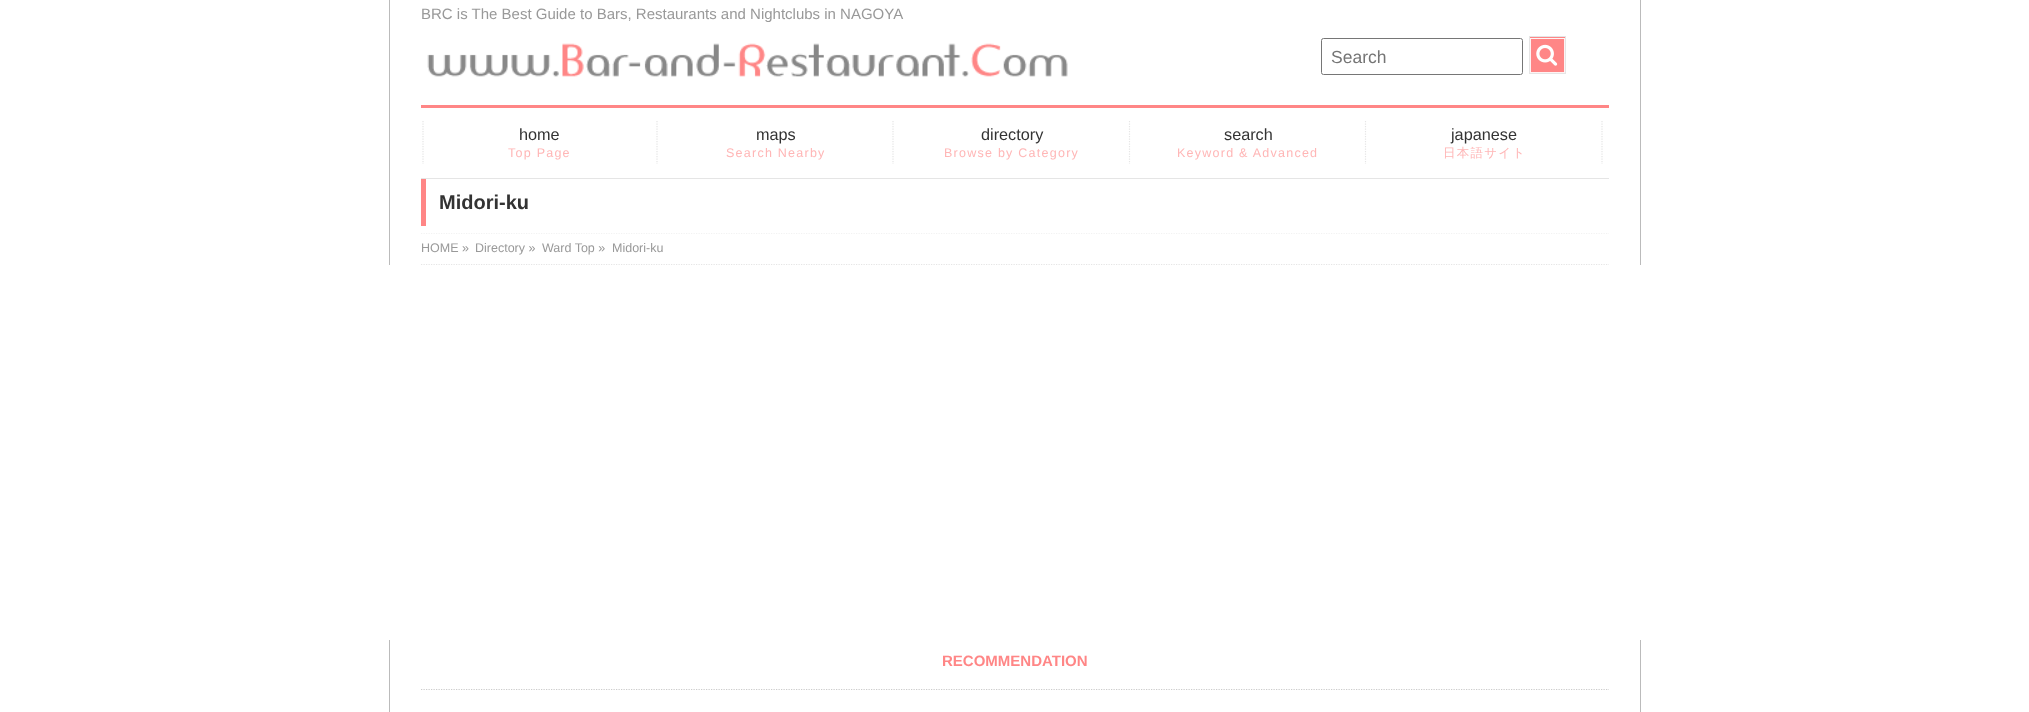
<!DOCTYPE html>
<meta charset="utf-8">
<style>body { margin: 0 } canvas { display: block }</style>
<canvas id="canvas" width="2029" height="712"></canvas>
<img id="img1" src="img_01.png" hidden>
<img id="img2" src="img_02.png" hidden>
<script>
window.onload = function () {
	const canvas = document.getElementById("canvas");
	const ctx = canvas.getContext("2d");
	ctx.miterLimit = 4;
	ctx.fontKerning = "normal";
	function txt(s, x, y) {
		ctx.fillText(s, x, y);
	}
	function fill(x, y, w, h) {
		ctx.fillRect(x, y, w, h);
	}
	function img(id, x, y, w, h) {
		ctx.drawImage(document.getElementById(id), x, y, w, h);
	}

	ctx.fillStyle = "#FFFFFF";
	fill(0, 0, 2029, 712);
	ctx.fillStyle = "#BBBBBB";
	fill(1640, 0, 1, 179);
	fill(389, 0, 1, 179);
	img("img1", 427, 43, 641, 34);
	ctx.beginPath();
	ctx.roundRect(1321.5, 38.5, 201, 36, 2);
	ctx.strokeStyle = "#767676";
	ctx.stroke();
	ctx.fillStyle = "#FF8686";
	fill(1530, 37, 35, 35);
	ctx.strokeStyle = "#FFF3F3";
	ctx.strokeRect(1530.5, 38.5, 34, 34);
	ctx.strokeStyle = "#E5E5E5";
	ctx.strokeRect(1529.5, 36.5, 36, 37);
	img("img2", 1536, 44, 22, 22);
	fill(421, 105, 1188, 3);
	ctx.fillStyle = "#E5E5E5";
	fill(421, 178, 1188, 1);
	ctx.beginPath();
	ctx.moveTo(423, 121);
	ctx.lineTo(423, 164);
	ctx.lineWidth = 1.2;
	ctx.setLineDash([1.25, 1.25]);
	ctx.stroke();
	ctx.beginPath();
	ctx.moveTo(657, 121);
	ctx.lineTo(657, 164);
	ctx.stroke();
	ctx.beginPath();
	ctx.moveTo(893, 121);
	ctx.lineTo(893, 164);
	ctx.stroke();
	ctx.beginPath();
	ctx.moveTo(1129.5, 121);
	ctx.lineTo(1129.5, 164);
	ctx.stroke();
	ctx.beginPath();
	ctx.moveTo(1365.5, 121);
	ctx.lineTo(1365.5, 164);
	ctx.stroke();
	ctx.beginPath();
	ctx.moveTo(1602, 121);
	ctx.lineTo(1602, 164);
	ctx.stroke();
	ctx.fillStyle = "#BBBBBB";
	fill(1640, 179, 1, 86);
	fill(389, 179, 1, 86);
	ctx.fillStyle = "#FF8686";
	fill(421, 179, 5, 47);
	ctx.save();
	ctx.beginPath();
	ctx.rect(390, 233, 1250, 32);
	ctx.clip();
	ctx.beginPath();
	ctx.moveTo(421, 233);
	ctx.lineTo(1609, 233);
	ctx.stroke();
	ctx.beginPath();
	ctx.moveTo(421, 264.5);
	ctx.lineTo(1609, 264.5);
	ctx.stroke();
	ctx.restore();
	ctx.fillStyle = "#BBBBBB";
	fill(1640, 640, 1, 72);
	fill(389, 640, 1, 72);
	ctx.beginPath();
	ctx.moveTo(421, 689.5);
	ctx.lineTo(1609, 689.5);
	ctx.strokeStyle = "#CCCCCC";
	ctx.stroke();
	ctx.font = "15px Liberation Sans";
	ctx.fillStyle = "#999999";
	txt("BRC is The Best Guide to Bars, Restaurants and Nightclubs in NAGOYA", 421, 19);
	ctx.font = "17.5px Liberation Sans";
	ctx.fillStyle = "#757575";
	txt("Search", 1331, 63);
	ctx.font = "16.25px Liberation Sans";
	ctx.fillStyle = "#333333";
	txt("home", 519, 140);
	ctx.letterSpacing = "1.25px";
	ctx.font = "12.5px Liberation Sans";
	ctx.fillStyle = "#FFB6B6";
	txt("Top Page", 508, 157);
	ctx.letterSpacing = "0px";
	ctx.font = "16.25px Liberation Sans";
	ctx.fillStyle = "#333333";
	txt("maps", 756, 140);
	ctx.letterSpacing = "1.25px";
	ctx.font = "12.5px Liberation Sans";
	ctx.fillStyle = "#FFB6B6";
	txt("Search Nearby", 726, 157);
	ctx.letterSpacing = "0px";
	ctx.font = "16.25px Liberation Sans";
	ctx.fillStyle = "#333333";
	txt("directory", 981, 140);
	ctx.letterSpacing = "1.25px";
	ctx.font = "12.5px Liberation Sans";
	ctx.fillStyle = "#FFB6B6";
	txt("Browse by Category", 944, 157);
	ctx.letterSpacing = "0px";
	ctx.font = "16.25px Liberation Sans";
	ctx.fillStyle = "#333333";
	txt("search", 1224, 140);
	ctx.letterSpacing = "1.25px";
	ctx.font = "12.5px Liberation Sans";
	ctx.fillStyle = "#FFB6B6";
	txt("Keyword & Advanced", 1177, 157);
	ctx.letterSpacing = "0px";
	ctx.font = "16.25px Liberation Sans";
	ctx.fillStyle = "#333333";
	txt("japanese", 1451, 140);
	ctx.letterSpacing = "1.25px";
	ctx.font = "500 12.5px WenQuanYi Zen Hei";
	ctx.fillStyle = "#FFB6B6";
	txt("日本語サイト", 1443, 157);
	ctx.letterSpacing = "0px";
	ctx.font = "bold 20px Liberation Sans";
	ctx.fillStyle = "#333333";
	txt("Midori-ku", 439, 209);
	ctx.font = "12.5px Liberation Sans";
	ctx.fillStyle = "#999999";
	txt("HOME »", 421, 252);
	txt("Directory »", 475, 252);
	txt("Ward Top »", 542, 252);
	txt("Midori-ku", 612, 252);
	ctx.font = "bold 15px Liberation Sans";
	ctx.fillStyle = "#FF8686";
	txt("RECOMMENDATION", 942, 666);
};
</script>
